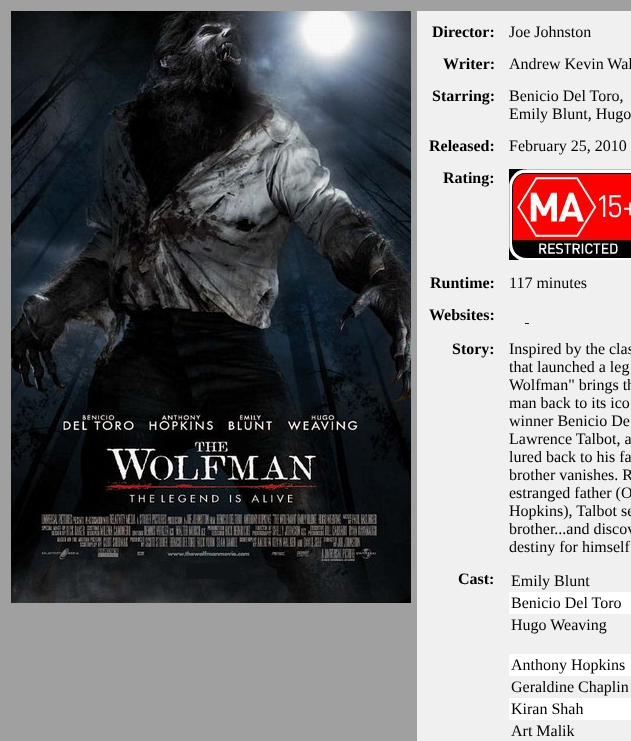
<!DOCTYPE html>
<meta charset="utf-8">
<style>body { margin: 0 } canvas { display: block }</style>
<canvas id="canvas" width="631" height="741"></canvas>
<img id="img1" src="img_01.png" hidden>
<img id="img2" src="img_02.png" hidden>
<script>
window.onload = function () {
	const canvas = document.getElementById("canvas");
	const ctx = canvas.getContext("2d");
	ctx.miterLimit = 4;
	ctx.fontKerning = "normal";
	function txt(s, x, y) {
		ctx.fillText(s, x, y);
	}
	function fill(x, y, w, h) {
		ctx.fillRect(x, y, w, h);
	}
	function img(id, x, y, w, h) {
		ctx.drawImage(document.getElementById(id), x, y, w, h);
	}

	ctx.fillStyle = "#A0A0A0";
	fill(0, 0, 631, 741);
	img("img1", 11, 11, 400, 592);
	ctx.fillStyle = "#F0F0F0";
	fill(417, 11, 214, 730);
	img("img2", 509, 169, 122, 91);
	ctx.fillStyle = "#0000EE";
	fill(525, 323, 4, 1);
	ctx.fillStyle = "#FFFFFF";
	fill(509, 592, 122, 22);
	fill(509, 654, 122, 22);
	fill(509, 698, 122, 22);
	ctx.font = "bold 16px Liberation Serif";
	ctx.fillStyle = "#000000";
	txt("Director:", 432, 37);
	ctx.font = "16px Liberation Serif";
	txt("Joe Johnston", 509, 37);
	ctx.font = "bold 16px Liberation Serif";
	txt("Writer:", 443, 69);
	ctx.font = "16px Liberation Serif";
	txt("Andrew Kevin Wal", 509, 69);
	ctx.font = "bold 16px Liberation Serif";
	txt("Starring:", 432, 101);
	ctx.font = "16px Liberation Serif";
	txt("Benicio Del Toro,", 509, 101);
	txt("Emily Blunt, Hugo", 509, 119);
	ctx.font = "bold 16px Liberation Serif";
	txt("Released:", 429, 151);
	ctx.font = "16px Liberation Serif";
	txt("February 25, 2010", 509, 151);
	ctx.font = "bold 16px Liberation Serif";
	txt("Rating:", 443, 183);
	txt("Runtime:", 430, 288);
	ctx.font = "16px Liberation Serif";
	txt("117 minutes", 509, 288);
	ctx.font = "bold 16px Liberation Serif";
	txt("Websites:", 429, 320);
	txt("Story:", 452, 354);
	ctx.font = "16px Liberation Serif";
	txt("Inspired by the clas", 509, 354);
	txt("that launched a leg", 509, 372);
	txt("Wolfman\" brings th", 509, 390);
	txt("man back to its ico", 509, 408);
	txt("winner Benicio De", 509, 426);
	txt("Lawrence Talbot, a", 509, 444);
	txt("lured back to his fa", 509, 462);
	txt("brother vanishes. R", 509, 480);
	txt("estranged father (O", 509, 498);
	txt("Hopkins), Talbot se", 509, 516);
	txt("brother...and discov", 509, 534);
	txt("destiny for himself", 509, 552);
	ctx.font = "bold 16px Liberation Serif";
	txt("Cast:", 458, 584);
	ctx.font = "16px Liberation Serif";
	txt("Emily Blunt", 511, 586);
	txt("Benicio Del Toro", 511, 608);
	txt("Hugo Weaving", 511, 630);
	txt("Anthony Hopkins", 511, 670);
	txt("Geraldine Chaplin", 511, 692);
	txt("Kiran Shah", 511, 714);
	txt("Art Malik", 511, 736);
};
</script>
